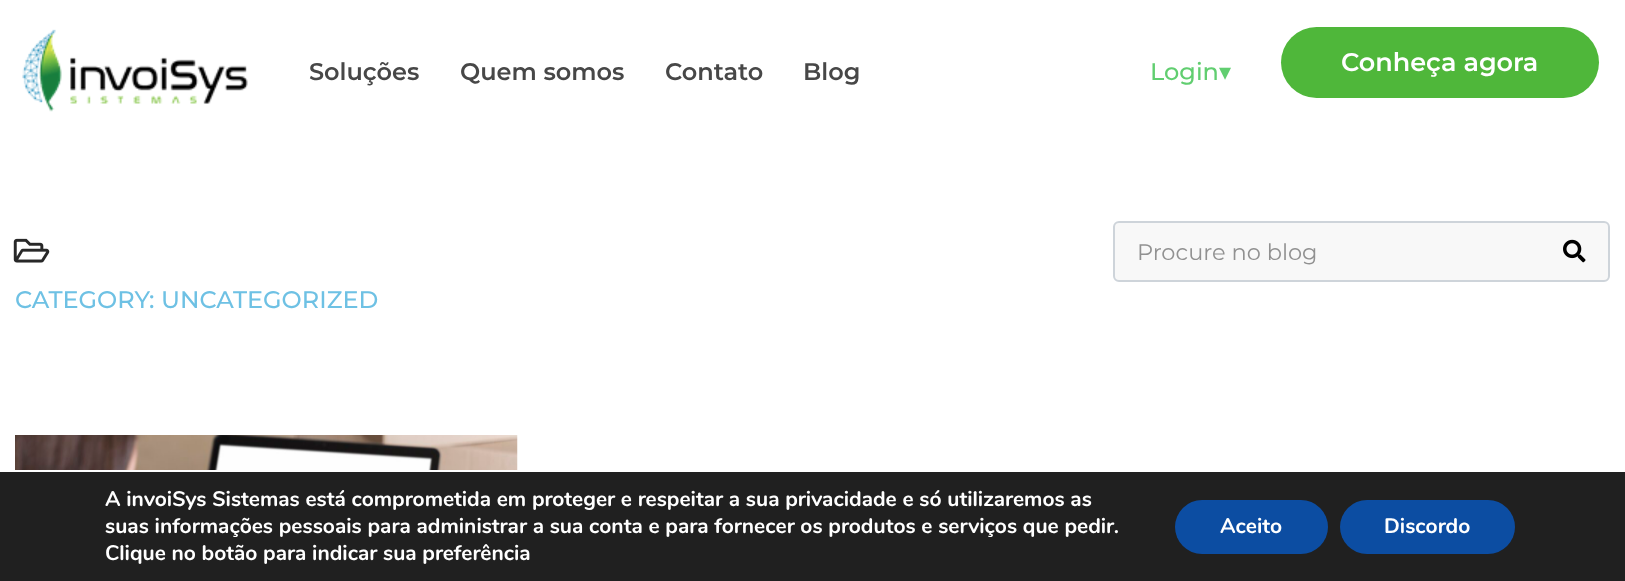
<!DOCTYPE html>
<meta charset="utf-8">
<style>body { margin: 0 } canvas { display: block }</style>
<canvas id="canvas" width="1625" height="581"></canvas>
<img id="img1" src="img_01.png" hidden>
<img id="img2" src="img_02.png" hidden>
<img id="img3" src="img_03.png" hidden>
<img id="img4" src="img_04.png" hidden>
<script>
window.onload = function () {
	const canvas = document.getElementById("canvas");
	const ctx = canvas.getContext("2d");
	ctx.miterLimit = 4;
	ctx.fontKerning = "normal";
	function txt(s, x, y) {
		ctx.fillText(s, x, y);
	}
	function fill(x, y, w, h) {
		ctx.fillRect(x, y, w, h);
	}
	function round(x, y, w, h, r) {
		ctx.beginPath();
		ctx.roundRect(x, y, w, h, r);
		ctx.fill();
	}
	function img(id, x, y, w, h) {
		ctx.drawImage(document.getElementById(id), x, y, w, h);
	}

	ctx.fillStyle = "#FFFFFF";
	fill(0, 0, 1625, 581);
	img("img1", 22, 29, 226, 83);
	ctx.fillStyle = "#4FB73A";
	round(1281, 27, 318, 71, 35.5);
	ctx.fillStyle = "#F8F8F8";
	ctx.beginPath();
	ctx.roundRect(1114, 222, 495, 59, 5);
	ctx.fill();
	ctx.strokeStyle = "#CED4DA";
	ctx.lineWidth = 2;
	ctx.stroke();
	img("img2", 1563, 239, 23, 24);
	img("img3", 13, 238, 37, 25);
	img("img4", 15, 435, 503, 35);
	ctx.fillStyle = "#202020";
	fill(0, 472, 1625, 109);
	ctx.fillStyle = "#0C4DA2";
	round(1175, 500, 153, 54, 27);
	round(1340, 500, 175, 54, 27);
	ctx.font = "600 24px Montserrat";
	ctx.fillStyle = "#474747";
	txt("Soluções", 309, 80);
	txt("Quem somos", 460, 80);
	txt("Contato", 665, 80);
	txt("Blog", 803, 80);
	ctx.font = "500 24px Montserrat";
	ctx.fillStyle = "#61CE70";
	txt("Login", 1150, 80);
	ctx.font = "24px DejaVu Sans";
	txt("▾", 1219, 80);
	ctx.font = "600 25.5px Montserrat";
	ctx.fillStyle = "#FFFFFF";
	txt("Conheça agora", 1341, 71);
	ctx.font = "22.5px Montserrat";
	ctx.fillStyle = "#919191";
	txt("Procure no blog", 1137, 260);
	ctx.font = "500 24px Montserrat";
	ctx.fillStyle = "#6EC1E4";
	txt("CATEGORY: UNCATEGORIZED", 15, 308);
	ctx.font = "bold 21px Nunito";
	ctx.fillStyle = "#FFFFFF";
	txt("A invoiSys Sistemas está comprometida em proteger e respeitar a sua privacidade e só utilizaremos as", 105, 506);
	txt("suas informações pessoais para administrar a sua conta e para fornecer os produtos e serviços que pedir.", 105, 533);
	txt("Clique no botão para indicar sua preferência", 105, 560);
	txt("Aceito", 1220, 533);
	txt("Discordo", 1384, 533);
};
</script>
